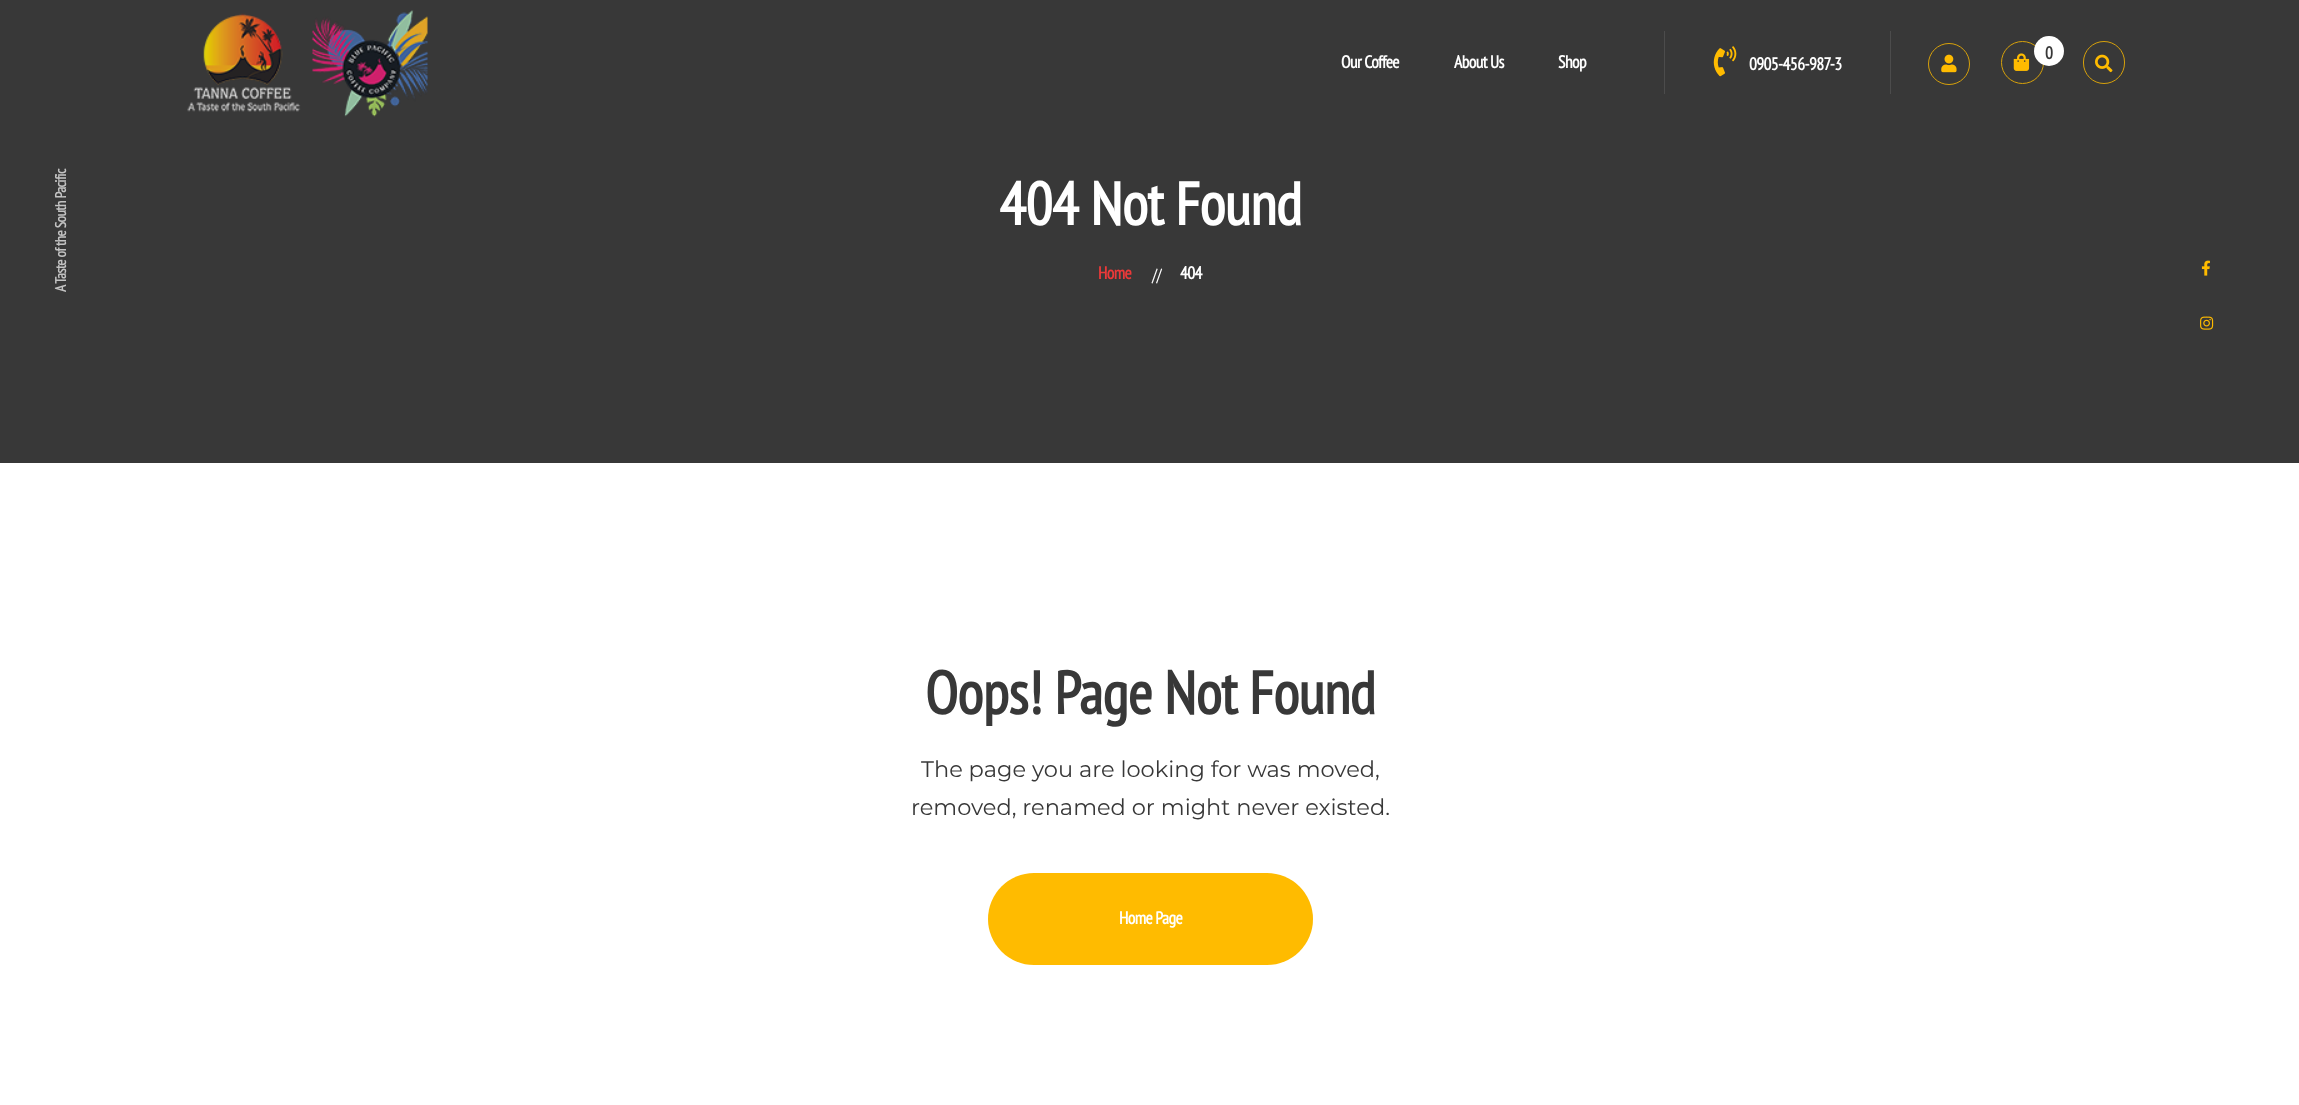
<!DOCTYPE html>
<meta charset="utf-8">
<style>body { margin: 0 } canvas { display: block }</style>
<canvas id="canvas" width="2299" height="1105"></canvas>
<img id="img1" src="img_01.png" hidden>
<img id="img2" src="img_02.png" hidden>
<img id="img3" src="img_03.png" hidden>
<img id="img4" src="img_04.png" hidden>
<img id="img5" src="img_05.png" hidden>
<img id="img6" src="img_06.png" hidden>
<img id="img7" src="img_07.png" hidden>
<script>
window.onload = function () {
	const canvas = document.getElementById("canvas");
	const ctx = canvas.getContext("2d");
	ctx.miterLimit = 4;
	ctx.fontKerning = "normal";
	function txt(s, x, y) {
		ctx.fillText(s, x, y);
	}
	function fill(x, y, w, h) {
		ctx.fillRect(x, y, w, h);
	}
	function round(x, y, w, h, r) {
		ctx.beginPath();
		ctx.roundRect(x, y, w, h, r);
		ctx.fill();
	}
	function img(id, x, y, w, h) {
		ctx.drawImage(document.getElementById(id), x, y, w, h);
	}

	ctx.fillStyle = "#FFFFFF";
	fill(0, 0, 2299, 1105);
	ctx.fillStyle = "#383838";
	fill(0, 0, 2299, 463);
	img("img1", 187, 10, 241, 107);
	img("img2", 1941, 54, 16, 19);
	ctx.beginPath();
	ctx.arc(1949, 64, 20.5, 0, Math.PI * 2);
	ctx.strokeStyle = "#D7A10B";
	ctx.stroke();
	ctx.beginPath();
	ctx.arc(2022.5, 62.5, 21, 0, Math.PI * 2);
	ctx.stroke();
	img("img3", 2013, 53, 17, 18);
	ctx.fillStyle = "#FFFFFF";
	ctx.beginPath();
	ctx.arc(2049, 51, 15, 0, Math.PI * 2);
	ctx.fill();
	ctx.beginPath();
	ctx.roundRect(2083.5, 41.5, 41, 42, 20.5);
	ctx.stroke();
	img("img4", 2095, 54, 18, 19);
	ctx.fillStyle = "#4C4C4C";
	fill(1664, 31, 1, 63);
	img("img5", 1713, 46, 24, 31);
	fill(1890, 31, 1, 63);
	img("img6", 2201, 260, 9, 16);
	img("img7", 2200, 316, 14, 14);
	ctx.fillStyle = "#FFBB00";
	round(988, 873, 325, 92, 46);
	ctx.letterSpacing = "-0.6px";
	ctx.font = "bold 17.5px PT Sans Narrow";
	ctx.fillStyle = "#383838";
	txt("0", 2045, 59);
	ctx.fillStyle = "#FFFFFF";
	txt("Our Coffee", 1341, 68);
	txt("About Us", 1454, 68);
	txt("Shop", 1558, 68);
	txt("0905-456-987-3", 1749, 70);
	ctx.font = "bold 15px PT Sans Narrow";
	ctx.fillStyle = "#C3C3C3";
	ctx.save();
	ctx.translate(66, 292);
	ctx.rotate(-90 * Math.PI / 180);
	ctx.fillText("A Taste of the South Pacific", 0, 0);
	ctx.restore();
	ctx.font = "bold 60px PT Sans Narrow";
	ctx.fillStyle = "#FFFFFF";
	txt("404 Not Found", 999, 225);
	ctx.font = "bold 17.5px PT Sans Narrow";
	ctx.fillStyle = "#EB3939";
	txt("Home", 1098, 279);
	ctx.font = "17.5px PT Sans Narrow";
	ctx.fillStyle = "#FFFFFF";
	txt("//", 1152, 281);
	ctx.font = "bold 17.5px PT Sans Narrow";
	txt("404", 1180, 279);
	ctx.font = "bold 60px PT Sans Narrow";
	ctx.fillStyle = "#383838";
	txt("Oops! Page Not Found", 925, 714);
	ctx.letterSpacing = "0px";
	ctx.font = "22.5px Montserrat";
	txt("The page you are looking for was moved,", 921, 777);
	txt("removed, renamed or might never existed.", 911, 815);
	ctx.letterSpacing = "-0.6px";
	ctx.font = "bold 17.5px PT Sans Narrow";
	ctx.fillStyle = "#FFFFFF";
	txt("Home Page", 1119, 924);
};
</script>
